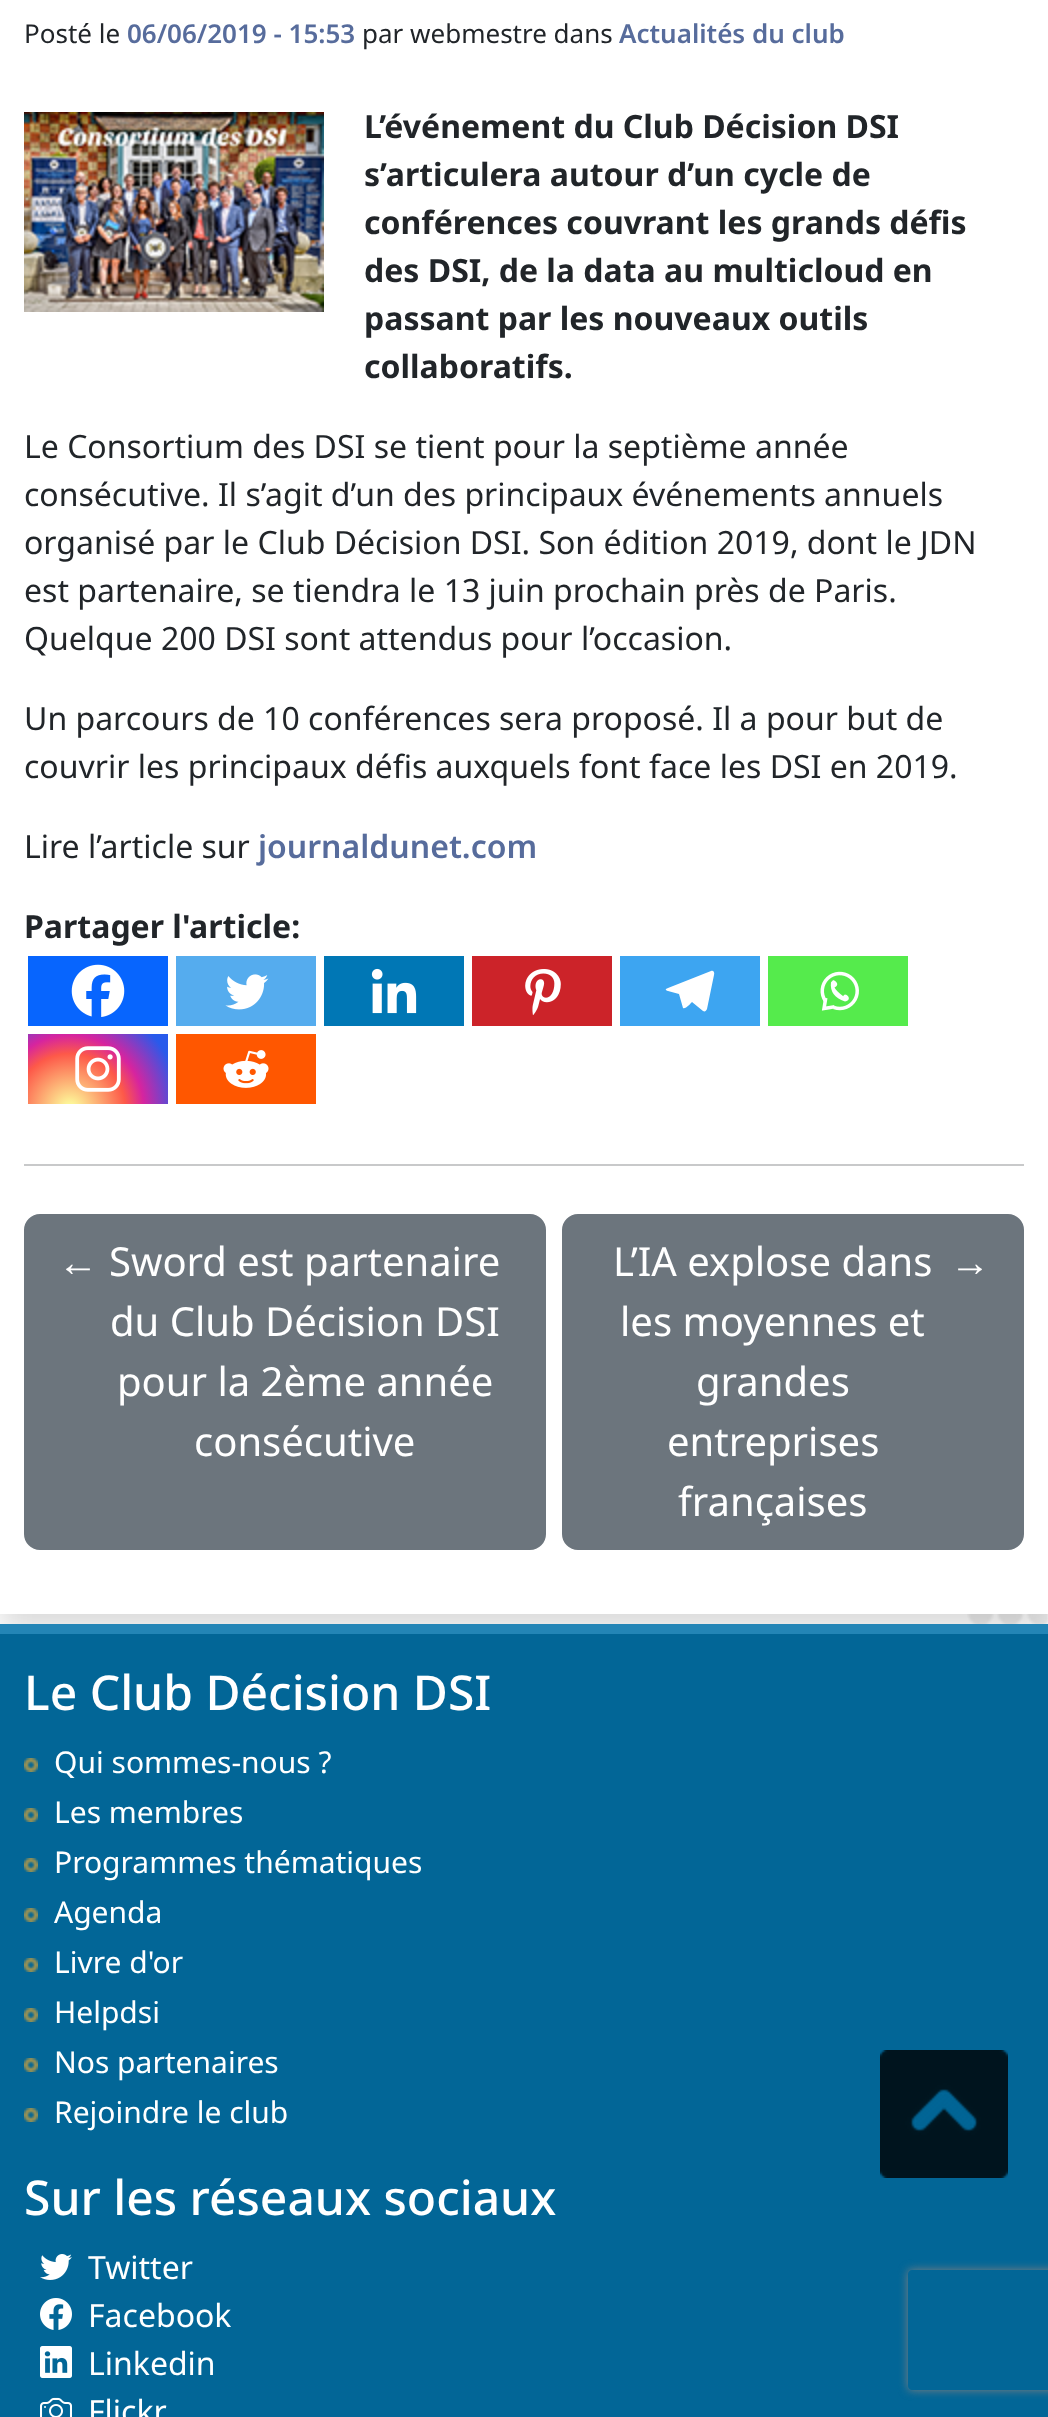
<!DOCTYPE html>
<meta charset="utf-8">
<style>body { margin: 0 } canvas { display: block }</style>
<canvas id="canvas" width="1048" height="2417"></canvas>
<img id="img1" src="img_01.png" hidden>
<img id="img2" src="img_02.png" hidden>
<img id="img3" src="img_03.png" hidden>
<img id="img4" src="img_04.png" hidden>
<img id="img5" src="img_05.png" hidden>
<img id="img6" src="img_06.png" hidden>
<img id="img7" src="img_07.png" hidden>
<img id="img8" src="img_08.png" hidden>
<img id="img9" src="img_09.png" hidden>
<img id="img10" src="img_10.png" hidden>
<img id="img11" src="img_11.png" hidden>
<img id="img12" src="img_12.png" hidden>
<img id="img13" src="img_13.png" hidden>
<img id="img14" src="img_14.png" hidden>
<img id="img15" src="img_15.png" hidden>
<script>
window.onload = function () {
	const canvas = document.getElementById("canvas");
	const ctx = canvas.getContext("2d");
	ctx.miterLimit = 4;
	ctx.fontKerning = "normal";
	function txt(s, x, y) {
		ctx.fillText(s, x, y);
	}
	function fill(x, y, w, h) {
		ctx.fillRect(x, y, w, h);
	}
	function img(id, x, y, w, h) {
		ctx.drawImage(document.getElementById(id), x, y, w, h);
	}
	let gradient;

	ctx.fillStyle = "#FFFFFF";
	fill(0, 0, 1048, 2417);
	img("img1", 967, 1614, 81, 10);
	ctx.fillStyle = "rgba(0, 0, 0, 0.15)";
	ctx.filter = "blur(16px)";
	ctx.beginPath();
	ctx.rect(0, -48, 1048, 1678);
	ctx.fill();
	ctx.filter = "none";
	ctx.fillStyle = "#FFFFFF";
	fill(0, 0, 1048, 1614);
	img("img2", 24, 112, 300, 200);
	ctx.fillStyle = "#0765FE";
	fill(28, 956, 140, 70);
	img("img3", 71, 964, 54, 53);
	ctx.fillStyle = "#55ACEE";
	fill(176, 956, 140, 70);
	img("img4", 225, 974, 44, 36);
	ctx.fillStyle = "#0077B5";
	fill(324, 956, 140, 70);
	img("img5", 371, 968, 46, 46);
	ctx.fillStyle = "#CC2329";
	fill(472, 956, 140, 70);
	img("img6", 525, 969, 36, 46);
	ctx.fillStyle = "#3DA5F1";
	fill(620, 956, 140, 70);
	ctx.fillStyle = "#FFFFFF";
	ctx.beginPath();
	ctx.moveTo(711, 971);
	ctx.lineTo(668, 988);
	ctx.bezierCurveTo(665, 989, 665, 990, 668, 991);
	ctx.lineTo(679, 994);
	ctx.lineTo(683, 1008);
	ctx.bezierCurveTo(685, 1010, 691, 1003, 692, 1002);
	ctx.lineTo(703, 1011);
	ctx.bezierCurveTo(705, 1012, 706, 1011, 707, 1009);
	ctx.lineTo(714, 975);
	ctx.bezierCurveTo(715, 972, 713, 970, 711, 971);
	ctx.closePath();
	ctx.fill();
	ctx.fillStyle = "#55EB4C";
	fill(768, 956, 140, 70);
	img("img7", 820, 971, 39, 40);
	gradient = ctx.createRadialGradient(70, 1109, 0, 70, 1109, 123);
	gradient.addColorStop(0, "#FDF497");
	gradient.addColorStop(0.05, "#FDF497");
	gradient.addColorStop(0.45, "#FD5949");
	gradient.addColorStop(0.6, "#D6249F");
	gradient.addColorStop(0.9, "#285AEB");
	ctx.fillStyle = gradient;
	fill(28, 1034, 140, 70);
	img("img8", 75, 1046, 46, 46);
	ctx.fillStyle = "#FF5700";
	fill(176, 1034, 140, 70);
	img("img9", 223, 1050, 46, 38);
	ctx.fillStyle = "#C8C9CA";
	fill(24, 1164, 1000, 2);
	ctx.fillStyle = "#6C757D";
	ctx.beginPath();
	ctx.roundRect(25, 1215, 520, 334, 15);
	ctx.fill();
	ctx.strokeStyle = "#6C757D";
	ctx.lineWidth = 2;
	ctx.stroke();
	ctx.beginPath();
	ctx.roundRect(563, 1215, 460, 334, 15);
	ctx.fill();
	ctx.stroke();
	ctx.fillStyle = "#026697";
	fill(0, 1634, 1048, 783);
	ctx.fillStyle = "#2385B6";
	fill(0, 1624, 1048, 10);
	img("img10", 24, 1758, 14, 14);
	img("img10", 24, 1808, 14, 14);
	img("img10", 24, 1858, 14, 14);
	img("img10", 24, 1908, 14, 14);
	img("img10", 24, 1958, 14, 14);
	img("img10", 24, 2008, 14, 14);
	img("img10", 24, 2058, 14, 14);
	img("img10", 24, 2108, 14, 14);
	img("img11", 40, 2254, 32, 26);
	img("img12", 40, 2298, 32, 32);
	img("img13", 40, 2346, 32, 32);
	img("img14", 40, 2397, 32, 20);
	img("img15", 880, 2050, 128, 128);
	ctx.save();
	ctx.beginPath();
	ctx.moveTo(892, 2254);
	ctx.lineTo(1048, 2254);
	ctx.lineTo(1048, 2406);
	ctx.lineTo(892, 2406);
	ctx.closePath();
	ctx.moveTo(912, 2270);
	ctx.lineTo(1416, 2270);
	ctx.bezierCurveTo(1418, 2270, 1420, 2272, 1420, 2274);
	ctx.lineTo(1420, 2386);
	ctx.bezierCurveTo(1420, 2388, 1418, 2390, 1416, 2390);
	ctx.lineTo(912, 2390);
	ctx.bezierCurveTo(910, 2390, 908, 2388, 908, 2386);
	ctx.lineTo(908, 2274);
	ctx.bezierCurveTo(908, 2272, 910, 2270, 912, 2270);
	ctx.closePath();
	ctx.clip("evenodd");
	ctx.fillStyle = "#808080";
	ctx.filter = "blur(5px)";
	ctx.beginPath();
	ctx.roundRect(908, 2270, 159, 120, 4);
	ctx.fill();
	ctx.filter = "none";
	ctx.restore();
	ctx.font = "26px Noto Sans";
	ctx.fillStyle = "#212529";
	txt("Posté le", 24, 43);
	ctx.font = "600 26px Noto Sans";
	ctx.fillStyle = "#576C9C";
	txt("06/06/2019 - 15:53", 127, 43);
	ctx.font = "26px Noto Sans";
	ctx.fillStyle = "#212529";
	txt("par webmestre dans", 362, 43);
	ctx.font = "600 26px Noto Sans";
	ctx.fillStyle = "#576C9C";
	txt("Actualités du club", 619, 43);
	ctx.font = "bold 32px Noto Sans";
	ctx.fillStyle = "#212529";
	txt("L’événement du Club Décision DSI", 364, 138);
	txt("s’articulera autour d’un cycle de", 364, 186);
	txt("conférences couvrant les grands défis", 364, 234);
	txt("des DSI, de la data au multicloud en", 364, 282);
	txt("passant par les nouveaux outils", 364, 330);
	txt("collaboratifs.", 364, 378);
	ctx.font = "32px Noto Sans";
	txt("Le Consortium des DSI se tient pour la septième année", 24, 458);
	txt("consécutive. Il s’agit d’un des principaux événements annuels", 24, 506);
	txt("organisé par le Club Décision DSI. Son édition 2019, dont le JDN", 24, 554);
	txt("est partenaire, se tiendra le 13 juin prochain près de Paris.", 24, 602);
	txt("Quelque 200 DSI sont attendus pour l’occasion.", 24, 650);
	txt("Un parcours de 10 conférences sera proposé. Il a pour but de", 24, 730);
	txt("couvrir les principaux défis auxquels font face les DSI en 2019.", 24, 778);
	txt("Lire l’article sur", 24, 858);
	ctx.font = "600 32px Noto Sans";
	ctx.fillStyle = "#576C9C";
	txt("journaldunet.com", 258, 858);
	ctx.font = "bold 32px Noto Sans";
	ctx.fillStyle = "#212529";
	txt("Partager l'article:", 24, 938);
	ctx.font = "40px Liberation Sans";
	ctx.fillStyle = "#FFFFFF";
	txt("←", 58, 1276);
	ctx.font = "40px Noto Sans";
	txt("Sword est partenaire", 109, 1276);
	txt("du Club Décision DSI", 110, 1336);
	txt("pour la 2ème année", 117, 1396);
	txt("consécutive", 194, 1456);
	txt("L’IA explose dans", 613, 1276);
	txt("les moyennes et", 620, 1336);
	txt("grandes", 696, 1396);
	txt("entreprises", 667, 1456);
	txt("françaises", 678, 1516);
	ctx.font = "40px Liberation Sans";
	txt("→", 950, 1276);
	ctx.font = "500 48px Noto Sans";
	txt("Le Club Décision DSI", 24, 1710);
	ctx.font = "30px Noto Sans";
	txt("Qui sommes-nous ?", 54, 1773);
	txt("Les membres", 54, 1823);
	txt("Programmes thématiques", 54, 1873);
	txt("Agenda", 54, 1923);
	txt("Livre d'or", 54, 1973);
	txt("Helpdsi", 54, 2023);
	txt("Nos partenaires", 54, 2073);
	txt("Rejoindre le club", 54, 2123);
	ctx.font = "500 48px Noto Sans";
	txt("Sur les réseaux sociaux", 24, 2215);
	ctx.font = "32px Noto Sans";
	txt("Twitter", 88, 2279);
	txt("Facebook", 88, 2327);
	txt("Linkedin", 88, 2375);
	txt("Flickr", 88, 2423);
};
</script>
